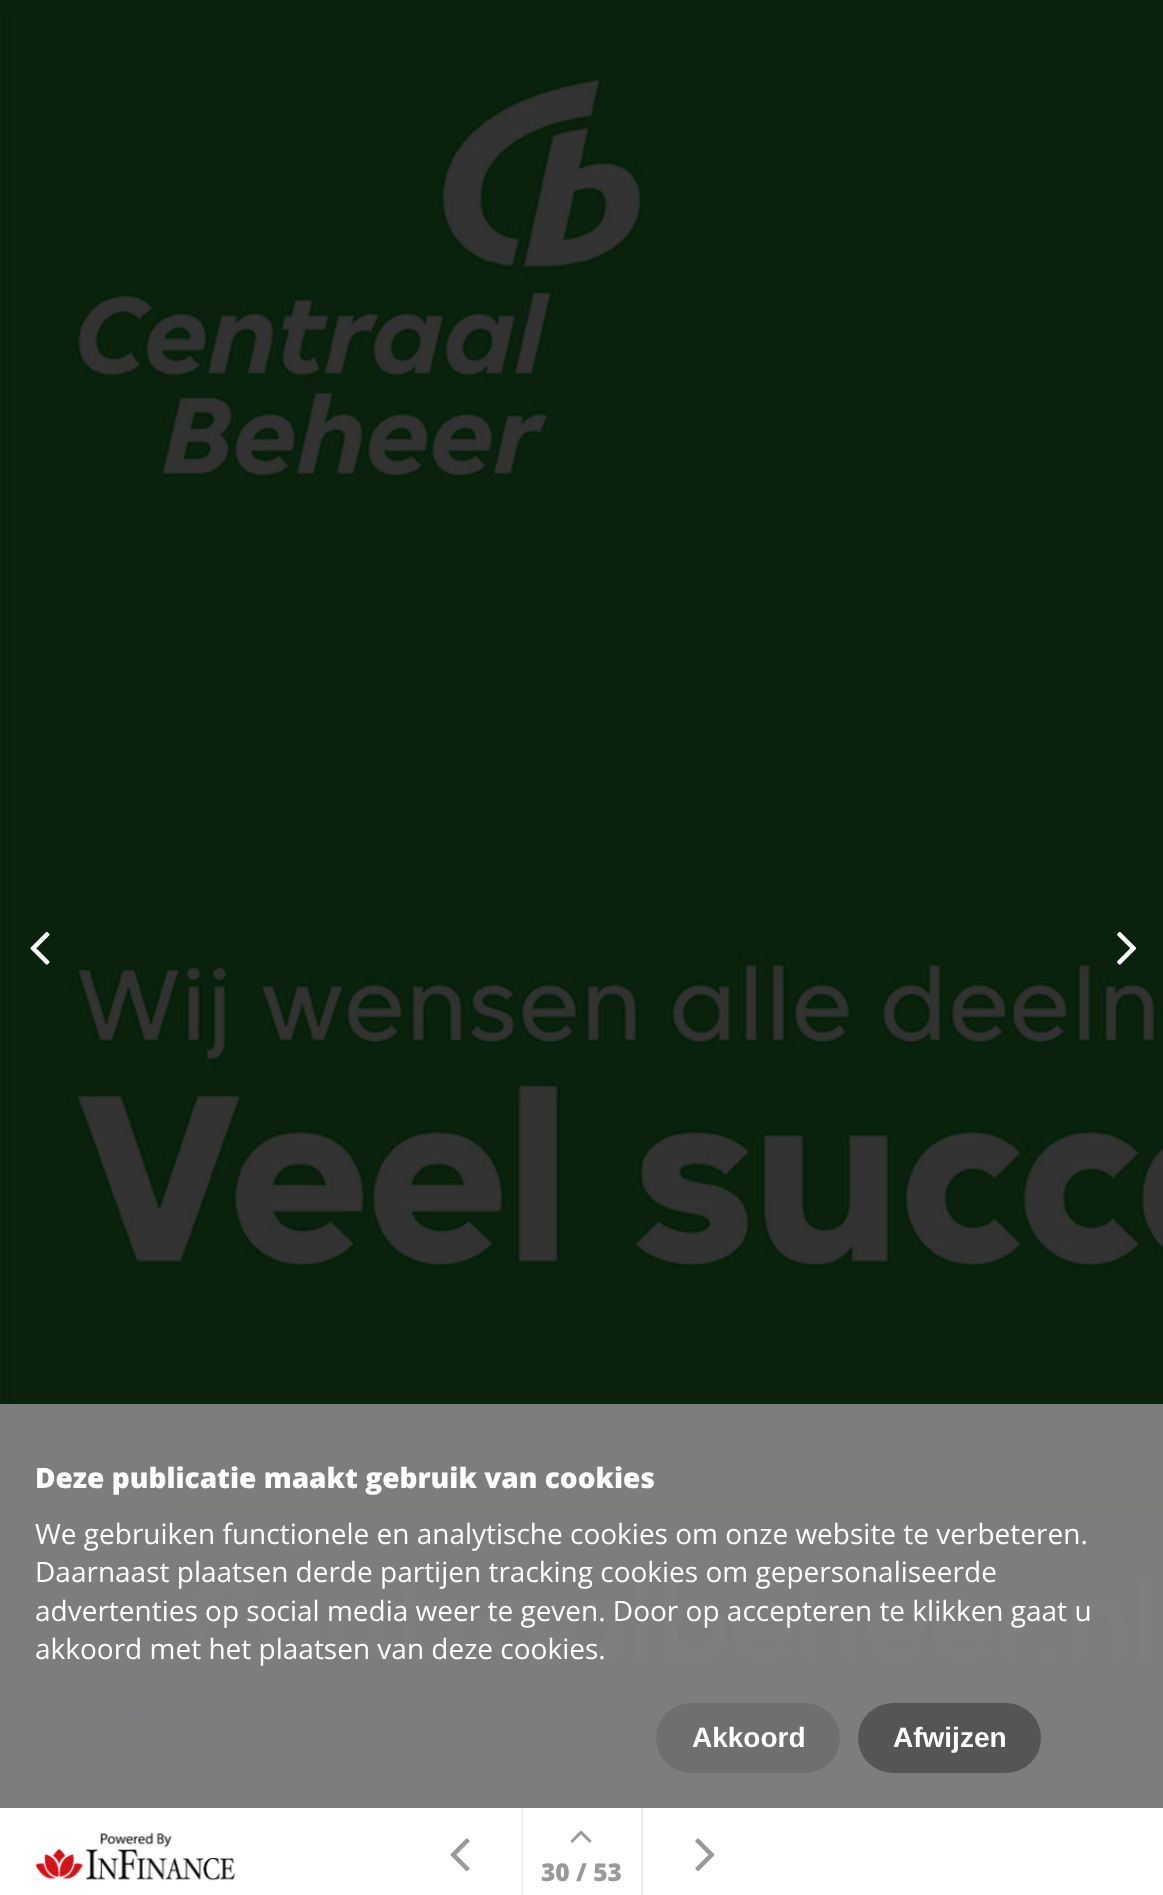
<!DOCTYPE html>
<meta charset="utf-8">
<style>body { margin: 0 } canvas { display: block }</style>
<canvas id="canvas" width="1163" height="1895"></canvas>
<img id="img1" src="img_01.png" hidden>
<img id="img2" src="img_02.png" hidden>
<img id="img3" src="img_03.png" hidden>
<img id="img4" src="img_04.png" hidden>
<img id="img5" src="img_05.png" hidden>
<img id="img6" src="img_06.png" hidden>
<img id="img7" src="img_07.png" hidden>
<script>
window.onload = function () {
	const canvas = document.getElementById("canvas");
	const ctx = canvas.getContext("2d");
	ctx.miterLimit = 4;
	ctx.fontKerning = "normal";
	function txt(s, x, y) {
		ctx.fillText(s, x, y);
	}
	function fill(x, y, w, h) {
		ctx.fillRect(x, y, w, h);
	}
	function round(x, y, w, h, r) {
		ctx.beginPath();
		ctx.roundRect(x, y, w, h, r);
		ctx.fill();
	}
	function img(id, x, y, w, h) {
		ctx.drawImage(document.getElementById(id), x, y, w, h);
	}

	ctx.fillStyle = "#0A220C";
	fill(0, 0, 1163, 1895);
	img("img1", 0, 0, 1163, 1808);
	ctx.fillStyle = "rgba(135, 133, 133, 0.93)";
	fill(0, 1404, 1163, 404);
	ctx.fillStyle = "rgba(0, 0, 0, 0.11)";
	round(656, 1703, 184, 70, 35);
	ctx.fillStyle = "#555555";
	round(858, 1703, 183, 70, 35);
	img("img2", 30, 931, 20, 34);
	img("img3", 1117, 931, 20, 34);
	ctx.fillStyle = "#FFFFFF";
	fill(0, 1808, 1163, 87);
	img("img4", 35, 1832, 201, 49);
	img("img5", 450, 1838, 20, 34);
	ctx.fillStyle = "#EBEBEB";
	fill(522, 1808, 1, 87);
	img("img6", 570, 1830, 22, 13);
	fill(641, 1808, 2, 87);
	img("img7", 695, 1838, 20, 34);
	ctx.font = "800 28px Open Sans";
	ctx.fillStyle = "#FFFFFF";
	txt("Deze publicatie maakt gebruik van cookies", 35, 1488);
	ctx.font = "28px Open Sans";
	txt("We gebruiken functionele en analytische cookies om onze website te verbeteren.", 35, 1544);
	txt("Daarnaast plaatsen derde partijen tracking cookies om gepersonaliseerde", 35, 1582);
	txt("advertenties op social media weer te geven. Door op accepteren te klikken gaat u", 35, 1621);
	txt("akkoord met het plaatsen van deze cookies.", 35, 1659);
	ctx.font = "bold 28px Liberation Sans";
	txt("Akkoord", 692, 1747);
	txt("Afwijzen", 893, 1747);
	ctx.font = "800 24.5px Open Sans";
	ctx.fillStyle = "#9A9999";
	txt("30 / 53", 541, 1881);
};
</script>
